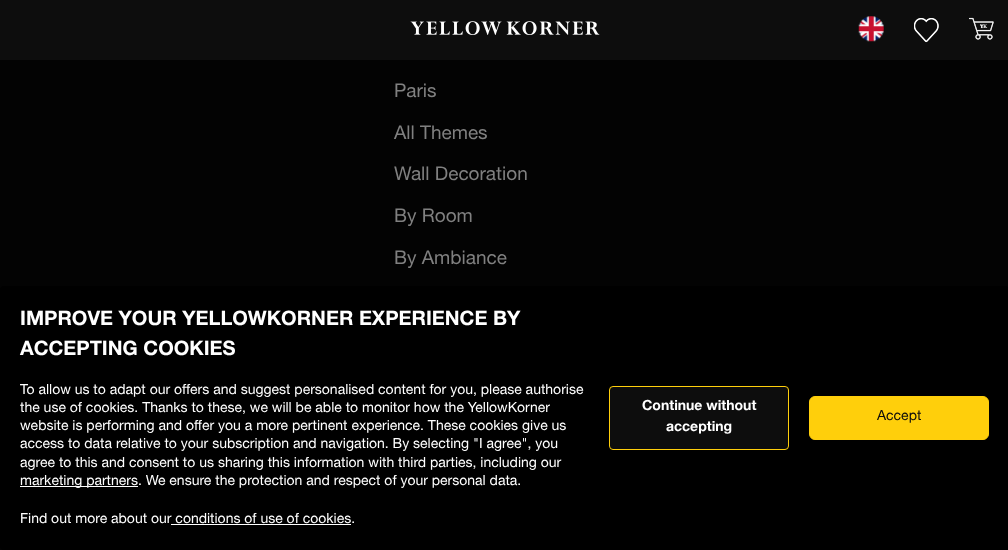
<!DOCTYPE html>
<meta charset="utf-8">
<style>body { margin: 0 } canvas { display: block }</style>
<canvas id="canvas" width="1008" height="550"></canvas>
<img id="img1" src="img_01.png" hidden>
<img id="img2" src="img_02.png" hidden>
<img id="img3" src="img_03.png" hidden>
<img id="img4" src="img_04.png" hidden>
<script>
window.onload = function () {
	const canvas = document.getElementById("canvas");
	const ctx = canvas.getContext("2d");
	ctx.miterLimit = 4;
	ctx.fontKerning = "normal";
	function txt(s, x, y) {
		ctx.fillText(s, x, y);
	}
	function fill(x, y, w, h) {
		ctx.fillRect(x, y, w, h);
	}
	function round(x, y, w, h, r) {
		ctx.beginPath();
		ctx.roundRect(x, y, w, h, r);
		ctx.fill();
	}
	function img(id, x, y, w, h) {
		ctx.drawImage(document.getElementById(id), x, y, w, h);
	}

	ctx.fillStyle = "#030303";
	fill(0, 0, 1008, 550);
	ctx.fillStyle = "#0D0D0D";
	fill(0, 0, 1008, 60);
	img("img1", 410, 21, 190, 14);
	img("img2", 858, 16, 26, 26);
	img("img3", 914, 18, 25, 25);
	img("img4", 969, 17, 25, 23);
	ctx.fillStyle = "#000000";
	round(0, 286, 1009, 264, 4);
	ctx.fillStyle = "#FFFFFF";
	fill(20, 486, 118, 1);
	fill(171, 524, 180, 1);
	ctx.fillStyle = "#0D0D0D";
	ctx.beginPath();
	ctx.roundRect(609.5, 386.5, 179, 63, 3.5);
	ctx.fill();
	ctx.strokeStyle = "#FFCF0B";
	ctx.stroke();
	ctx.fillStyle = "#FFCF0B";
	ctx.beginPath();
	ctx.roundRect(809.5, 396.5, 179, 43, 5.5);
	ctx.fill();
	ctx.stroke();
	ctx.font = "19px Helvetica Neue";
	ctx.fillStyle = "#808080";
	txt("Paris", 394, 97);
	txt("All Themes", 394, 139);
	txt("Wall Decoration", 394, 180);
	txt("By Room", 394, 222);
	txt("By Ambiance", 394, 264);
	ctx.font = "bold 20px Helvetica Neue";
	ctx.fillStyle = "#FFFFFF";
	txt("IMPROVE YOUR YELLOWKORNER EXPERIENCE BY", 20, 325);
	txt("ACCEPTING COOKIES", 20, 355);
	ctx.font = "14px Helvetica Neue";
	txt("To allow us to adapt our offers and suggest personalised content for you, please authorise", 20, 394);
	txt("the use of cookies. Thanks to these, we will be able to monitor how the YellowKorner", 20, 412);
	txt("website is performing and offer you a more pertinent experience. These cookies give us", 20, 430);
	txt("access to data relative to your subscription and navigation. By selecting \"I agree\", you", 20, 448);
	txt("agree to this and consent to us sharing this information with third parties, including our", 20, 467);
	txt("marketing partners. We ensure the protection and respect of your personal data.", 20, 485);
	txt("Find out more about our conditions of use of cookies.", 20, 523);
	ctx.font = "bold 14px Helvetica Neue";
	txt("Continue without", 642, 410);
	txt("accepting", 666, 431);
	ctx.font = "14px Helvetica Neue";
	ctx.fillStyle = "#0D0D0D";
	txt("Accept", 877, 420);
};
</script>
